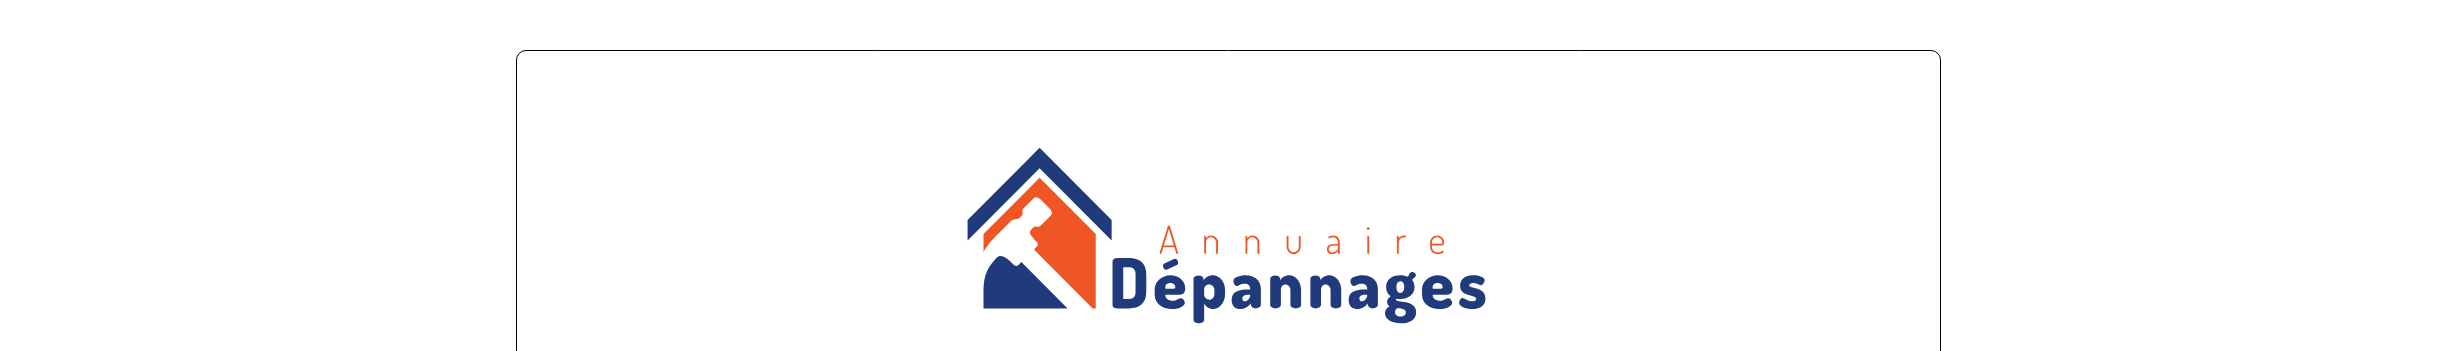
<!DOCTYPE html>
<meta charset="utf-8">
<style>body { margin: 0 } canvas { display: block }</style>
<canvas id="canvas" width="2456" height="351"></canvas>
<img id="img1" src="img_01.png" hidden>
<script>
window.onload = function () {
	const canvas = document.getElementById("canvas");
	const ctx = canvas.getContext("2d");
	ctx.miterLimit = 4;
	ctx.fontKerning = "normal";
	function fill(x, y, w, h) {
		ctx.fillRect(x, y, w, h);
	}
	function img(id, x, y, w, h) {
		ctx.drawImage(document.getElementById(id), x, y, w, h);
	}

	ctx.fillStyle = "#FFFFFF";
	fill(0, 0, 2456, 351);
	ctx.beginPath();
	ctx.roundRect(516.5, 50.5, 1424, 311, 9.5);
	ctx.strokeStyle = "#000000";
	ctx.stroke();
	img("img1", 967, 147, 519, 177);
};
</script>
